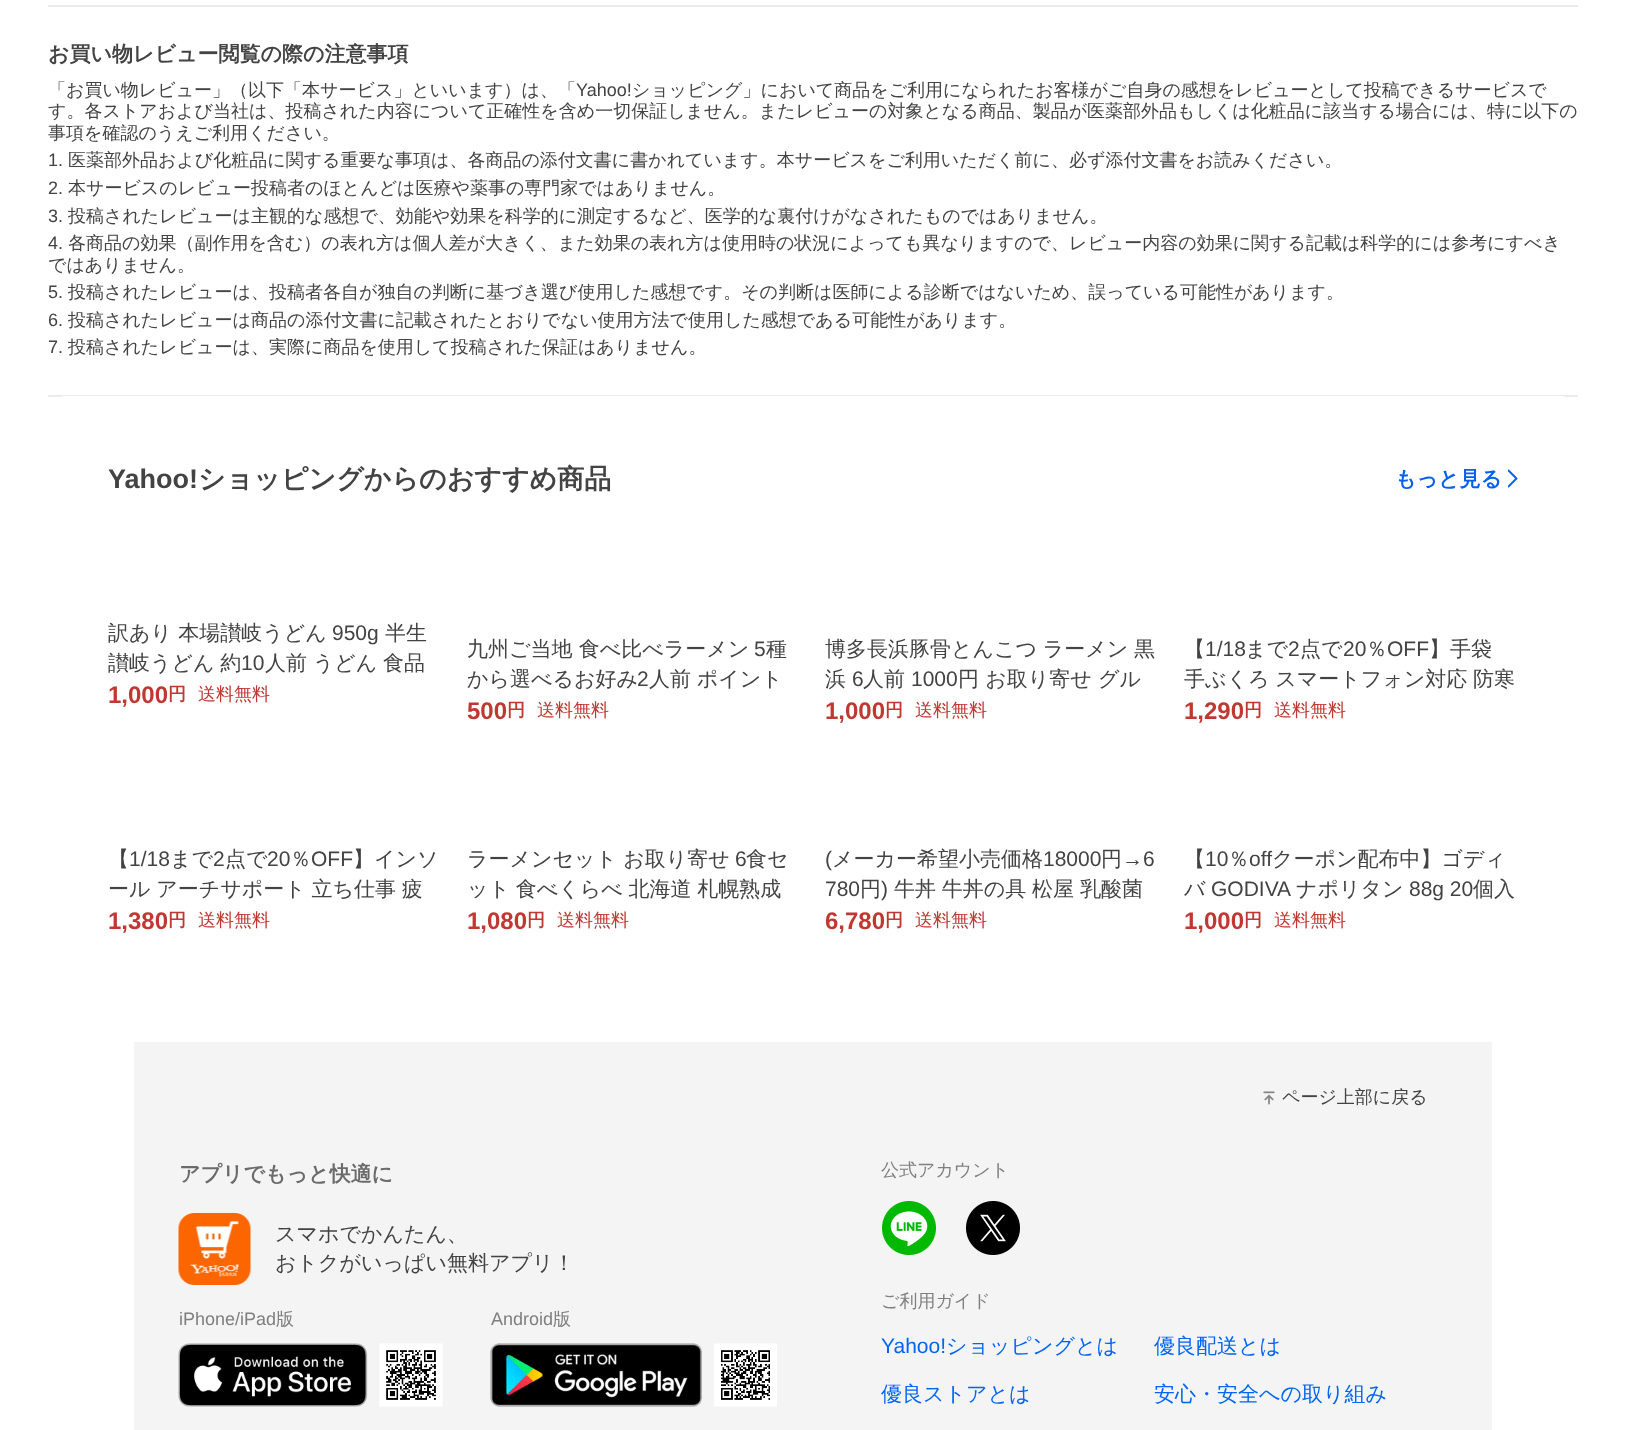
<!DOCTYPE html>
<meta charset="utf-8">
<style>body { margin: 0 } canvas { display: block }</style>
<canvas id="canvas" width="1626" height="1430"></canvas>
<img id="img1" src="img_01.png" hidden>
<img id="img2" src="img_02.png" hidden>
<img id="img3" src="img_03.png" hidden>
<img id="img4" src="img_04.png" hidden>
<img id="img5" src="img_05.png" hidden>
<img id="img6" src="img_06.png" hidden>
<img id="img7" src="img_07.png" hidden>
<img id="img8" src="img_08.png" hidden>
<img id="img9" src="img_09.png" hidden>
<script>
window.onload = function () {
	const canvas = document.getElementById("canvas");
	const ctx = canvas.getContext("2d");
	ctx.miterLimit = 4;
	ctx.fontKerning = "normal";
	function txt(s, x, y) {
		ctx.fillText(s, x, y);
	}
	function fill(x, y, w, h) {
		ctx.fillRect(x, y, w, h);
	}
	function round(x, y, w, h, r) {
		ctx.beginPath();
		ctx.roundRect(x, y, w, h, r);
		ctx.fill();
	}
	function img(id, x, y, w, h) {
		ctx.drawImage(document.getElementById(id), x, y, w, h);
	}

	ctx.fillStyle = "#FFFFFF";
	fill(0, 0, 1626, 1430);
	ctx.fillStyle = "#EBEBEB";
	fill(48, 5, 1530, 2);
	fill(48, 395, 1530, 2);
	ctx.fillStyle = "#FFFFFF";
	round(48, 396, 1530, 599, 18);
	img("img1", 1508, 469, 10, 19);
	ctx.fillStyle = "#F4F4F4";
	fill(134, 1042, 1358, 388);
	img("img2", 1263, 1091, 12, 14);
	img("img3", 178, 1213, 73, 72);
	img("img4", 178, 1343, 190, 64);
	img("img5", 379, 1343, 64, 64);
	img("img6", 490, 1343, 212, 64);
	img("img7", 714, 1343, 63, 64);
	img("img8", 882, 1201, 54, 54);
	img("img9", 966, 1201, 54, 54);
	ctx.font = "bold 21px WenQuanYi Zen Hei";
	ctx.fillStyle = "#434343";
	txt("お買い物レビュー閲覧の際の注意事項", 48, 61);
	ctx.font = "500 18px WenQuanYi Zen Hei";
	txt("「お買い物レビュー」（以下「本サービス」といいます）は、「", 48, 96);
	ctx.font = "18px Liberation Sans";
	txt("Yahoo!", 576, 96);
	ctx.font = "500 18px WenQuanYi Zen Hei";
	txt("ショッピング」において商品をご利用になられたお客様がご自身の感想をレビューとして投稿できるサービスで", 632, 96);
	txt("す。各ストアおよび当社は、投稿された内容について正確性を含め一切保証しません。またレビューの対象となる商品、製品が医薬部外品もしくは化粧品に該当する場合には、特に以下の", 48, 117);
	txt("事項を確認のうえご利用ください。", 48, 139);
	ctx.font = "18px Liberation Sans";
	txt("1.", 48, 166);
	ctx.font = "500 18px WenQuanYi Zen Hei";
	txt("医薬部外品および化粧品に関する重要な事項は、各商品の添付文書に書かれています。本サービスをご利用いただく前に、必ず添付文書をお読みください。", 68, 166);
	ctx.font = "18px Liberation Sans";
	txt("2.", 48, 194);
	ctx.font = "500 18px WenQuanYi Zen Hei";
	txt("本サービスのレビュー投稿者のほとんどは医療や薬事の専門家ではありません。", 68, 194);
	ctx.font = "18px Liberation Sans";
	txt("3.", 48, 222);
	ctx.font = "500 18px WenQuanYi Zen Hei";
	txt("投稿されたレビューは主観的な感想で、効能や効果を科学的に測定するなど、医学的な裏付けがなされたものではありません。", 68, 222);
	ctx.font = "18px Liberation Sans";
	txt("4.", 48, 249);
	ctx.font = "500 18px WenQuanYi Zen Hei";
	txt("各商品の効果（副作用を含む）の表れ方は個人差が大きく、また効果の表れ方は使用時の状況によっても異なりますので、レビュー内容の効果に関する記載は科学的には参考にすべき", 68, 249);
	txt("ではありません。", 48, 271);
	ctx.font = "18px Liberation Sans";
	txt("5.", 48, 298);
	ctx.font = "500 18px WenQuanYi Zen Hei";
	txt("投稿されたレビューは、投稿者各自が独自の判断に基づき選び使用した感想です。その判断は医師による診断ではないため、誤っている可能性があります。", 68, 298);
	ctx.font = "18px Liberation Sans";
	txt("6.", 48, 326);
	ctx.font = "500 18px WenQuanYi Zen Hei";
	txt("投稿されたレビューは商品の添付文書に記載されたとおりでない使用方法で使用した感想である可能性があります。", 68, 326);
	ctx.font = "18px Liberation Sans";
	txt("7.", 48, 353);
	ctx.font = "500 18px WenQuanYi Zen Hei";
	txt("投稿されたレビューは、実際に商品を使用して投稿された保証はありません。", 68, 353);
	ctx.font = "bold 27px Liberation Sans";
	txt("Yahoo!", 108, 488);
	ctx.font = "bold 27px WenQuanYi Zen Hei";
	txt("ショッピングからのおすすめ商品", 198, 488);
	ctx.font = "bold 21px WenQuanYi Zen Hei";
	ctx.fillStyle = "#0260EA";
	txt("もっと見る", 1395, 486);
	ctx.font = "500 21px WenQuanYi Zen Hei";
	ctx.fillStyle = "#434343";
	txt("訳あり 本場讃岐うどん", 108, 640);
	ctx.font = "21px Liberation Sans";
	txt("950g", 332, 640);
	ctx.font = "500 21px WenQuanYi Zen Hei";
	txt("半生", 385, 640);
	ctx.wordSpacing = "-0.5px";
	txt("讃岐うどん 約", 108, 670);
	ctx.wordSpacing = "0px";
	ctx.font = "21px Liberation Sans";
	txt("10", 241, 670);
	ctx.wordSpacing = "-0.5px";
	ctx.font = "500 21px WenQuanYi Zen Hei";
	txt("人前 うどん 食品", 265, 670);
	ctx.wordSpacing = "0px";
	ctx.font = "bold 24px Liberation Sans";
	ctx.fillStyle = "#C13832";
	txt("1,000", 108, 703);
	ctx.font = "bold 18px WenQuanYi Zen Hei";
	txt("円", 168, 700);
	ctx.font = "500 18px WenQuanYi Zen Hei";
	txt("送料無料", 198, 700);
	ctx.font = "500 21px WenQuanYi Zen Hei";
	ctx.fillStyle = "#434343";
	txt("九州ご当地 食べ比べラーメン", 467, 656);
	ctx.font = "21px Liberation Sans";
	txt("5", 754, 656);
	ctx.font = "500 21px WenQuanYi Zen Hei";
	txt("種", 766, 656);
	txt("から選べるお好み", 467, 686);
	ctx.font = "21px Liberation Sans";
	txt("2", 637, 686);
	ctx.wordSpacing = "-0.5px";
	ctx.font = "500 21px WenQuanYi Zen Hei";
	txt("人前 ポイント", 649, 686);
	ctx.wordSpacing = "0px";
	ctx.font = "bold 24px Liberation Sans";
	ctx.fillStyle = "#C13832";
	txt("500", 467, 719);
	ctx.font = "bold 18px WenQuanYi Zen Hei";
	txt("円", 507, 716);
	ctx.font = "500 18px WenQuanYi Zen Hei";
	txt("送料無料", 537, 716);
	ctx.wordSpacing = "-0.5px";
	ctx.font = "500 21px WenQuanYi Zen Hei";
	ctx.fillStyle = "#434343";
	txt("博多長浜豚骨とんこつ ラーメン 黒", 825, 656);
	ctx.wordSpacing = "0px";
	txt("浜", 825, 686);
	ctx.font = "21px Liberation Sans";
	txt("6", 852, 686);
	ctx.font = "500 21px WenQuanYi Zen Hei";
	txt("人前", 863, 686);
	ctx.font = "21px Liberation Sans";
	txt("1000", 911, 686);
	ctx.font = "500 21px WenQuanYi Zen Hei";
	txt("円 お取り寄せ グル", 958, 686);
	ctx.font = "bold 24px Liberation Sans";
	ctx.fillStyle = "#C13832";
	txt("1,000", 825, 719);
	ctx.font = "bold 18px WenQuanYi Zen Hei";
	txt("円", 885, 716);
	ctx.font = "500 18px WenQuanYi Zen Hei";
	txt("送料無料", 915, 716);
	ctx.font = "500 21px WenQuanYi Zen Hei";
	ctx.fillStyle = "#434343";
	txt("【", 1184, 656);
	ctx.font = "21px Liberation Sans";
	txt("1/18", 1205, 656);
	ctx.font = "500 21px WenQuanYi Zen Hei";
	txt("まで", 1245, 656);
	ctx.font = "21px Liberation Sans";
	txt("2", 1288, 656);
	ctx.font = "500 21px WenQuanYi Zen Hei";
	txt("点で", 1300, 656);
	ctx.font = "21px Liberation Sans";
	txt("20", 1343, 656);
	ctx.font = "500 21px WenQuanYi Zen Hei";
	txt("％", 1366, 656);
	ctx.font = "21px Liberation Sans";
	txt("OFF", 1387, 656);
	ctx.font = "500 21px WenQuanYi Zen Hei";
	txt("】手袋", 1429, 656);
	ctx.wordSpacing = "-0.5px";
	txt("手ぶくろ スマートフォン対応 防寒", 1184, 686);
	ctx.wordSpacing = "0px";
	ctx.font = "bold 24px Liberation Sans";
	ctx.fillStyle = "#C13832";
	txt("1,290", 1184, 719);
	ctx.font = "bold 18px WenQuanYi Zen Hei";
	txt("円", 1244, 716);
	ctx.font = "500 18px WenQuanYi Zen Hei";
	txt("送料無料", 1274, 716);
	ctx.font = "500 21px WenQuanYi Zen Hei";
	ctx.fillStyle = "#434343";
	txt("【", 108, 866);
	ctx.font = "21px Liberation Sans";
	txt("1/18", 129, 866);
	ctx.font = "500 21px WenQuanYi Zen Hei";
	txt("まで", 170, 866);
	ctx.font = "21px Liberation Sans";
	txt("2", 213, 866);
	ctx.font = "500 21px WenQuanYi Zen Hei";
	txt("点で", 225, 866);
	ctx.font = "21px Liberation Sans";
	txt("20", 267, 866);
	ctx.font = "500 21px WenQuanYi Zen Hei";
	txt("％", 290, 866);
	ctx.font = "21px Liberation Sans";
	txt("OFF", 311, 866);
	ctx.font = "500 21px WenQuanYi Zen Hei";
	txt("】インソ", 353, 866);
	ctx.wordSpacing = "-0.5px";
	txt("ール アーチサポート 立ち仕事 疲", 108, 896);
	ctx.wordSpacing = "0px";
	ctx.font = "bold 24px Liberation Sans";
	ctx.fillStyle = "#C13832";
	txt("1,380", 108, 929);
	ctx.font = "bold 18px WenQuanYi Zen Hei";
	txt("円", 168, 926);
	ctx.font = "500 18px WenQuanYi Zen Hei";
	txt("送料無料", 198, 926);
	ctx.font = "500 21px WenQuanYi Zen Hei";
	ctx.fillStyle = "#434343";
	txt("ラーメンセット お取り寄せ", 467, 866);
	ctx.font = "21px Liberation Sans";
	txt("6", 735, 866);
	ctx.font = "500 21px WenQuanYi Zen Hei";
	txt("食セ", 746, 866);
	ctx.wordSpacing = "-0.5px";
	txt("ット 食べくらべ 北海道 札幌熟成", 467, 896);
	ctx.wordSpacing = "0px";
	ctx.font = "bold 24px Liberation Sans";
	ctx.fillStyle = "#C13832";
	txt("1,080", 467, 929);
	ctx.font = "bold 18px WenQuanYi Zen Hei";
	txt("円", 527, 926);
	ctx.font = "500 18px WenQuanYi Zen Hei";
	txt("送料無料", 557, 926);
	ctx.font = "21px Liberation Sans";
	ctx.fillStyle = "#434343";
	txt("(", 825, 866);
	ctx.font = "500 21px WenQuanYi Zen Hei";
	txt("メーカー希望小売価格", 832, 866);
	ctx.font = "21px Liberation Sans";
	txt("18000", 1043, 866);
	ctx.font = "500 21px WenQuanYi Zen Hei";
	txt("円", 1101, 866);
	ctx.font = "21px Liberation Sans";
	txt("→6", 1122, 866);
	txt("780", 825, 896);
	ctx.font = "500 21px WenQuanYi Zen Hei";
	txt("円", 860, 896);
	ctx.font = "21px Liberation Sans";
	txt(")", 881, 896);
	ctx.wordSpacing = "-0.5px";
	ctx.font = "500 21px WenQuanYi Zen Hei";
	txt("牛丼 牛丼の具 松屋 乳酸菌", 894, 896);
	ctx.wordSpacing = "0px";
	ctx.font = "bold 24px Liberation Sans";
	ctx.fillStyle = "#C13832";
	txt("6,780", 825, 929);
	ctx.font = "bold 18px WenQuanYi Zen Hei";
	txt("円", 885, 926);
	ctx.font = "500 18px WenQuanYi Zen Hei";
	txt("送料無料", 915, 926);
	ctx.font = "500 21px WenQuanYi Zen Hei";
	ctx.fillStyle = "#434343";
	txt("【", 1184, 866);
	ctx.font = "21px Liberation Sans";
	txt("10", 1205, 866);
	ctx.font = "500 21px WenQuanYi Zen Hei";
	txt("％", 1228, 866);
	ctx.font = "21px Liberation Sans";
	txt("off", 1249, 866);
	ctx.font = "500 21px WenQuanYi Zen Hei";
	txt("クーポン配布中】ゴディ", 1272, 866);
	txt("バ", 1184, 896);
	ctx.font = "21px Liberation Sans";
	txt("GODIVA", 1211, 896);
	ctx.font = "500 21px WenQuanYi Zen Hei";
	txt("ナポリタン", 1296, 896);
	ctx.font = "21px Liberation Sans";
	txt("88g 20", 1409, 896);
	ctx.font = "500 21px WenQuanYi Zen Hei";
	txt("個入", 1473, 896);
	ctx.font = "bold 24px Liberation Sans";
	ctx.fillStyle = "#C13832";
	txt("1,000", 1184, 929);
	ctx.font = "bold 18px WenQuanYi Zen Hei";
	txt("円", 1244, 926);
	ctx.font = "500 18px WenQuanYi Zen Hei";
	txt("送料無料", 1274, 926);
	ctx.fillStyle = "#434343";
	txt("ページ上部に戻る", 1282, 1103);
	ctx.font = "bold 21px WenQuanYi Zen Hei";
	ctx.fillStyle = "#6B6B6B";
	txt("アプリでもっと快適に", 179, 1181);
	ctx.font = "500 21px WenQuanYi Zen Hei";
	ctx.fillStyle = "#434343";
	txt("スマホでかんたん、", 275, 1241);
	txt("おトクがいっぱい無料アプリ！", 275, 1270);
	ctx.font = "18px Liberation Sans";
	ctx.fillStyle = "#7F7F7F";
	txt("iPhone/iPad", 179, 1325);
	ctx.font = "500 18px WenQuanYi Zen Hei";
	txt("版", 276, 1325);
	ctx.font = "18px Liberation Sans";
	txt("Android", 491, 1325);
	ctx.font = "500 18px WenQuanYi Zen Hei";
	txt("版", 553, 1325);
	txt("公式アカウント", 881, 1176);
	txt("ご利用ガイド", 881, 1307);
	ctx.font = "21px Liberation Sans";
	ctx.fillStyle = "#0265F6";
	txt("Yahoo!", 881, 1353);
	ctx.font = "500 21px WenQuanYi Zen Hei";
	txt("ショッピングとは", 946, 1353);
	txt("優良配送とは", 1154, 1353);
	txt("優良ストアとは", 881, 1401);
	txt("安心・安全への取り組み", 1154, 1401);
};
</script>
